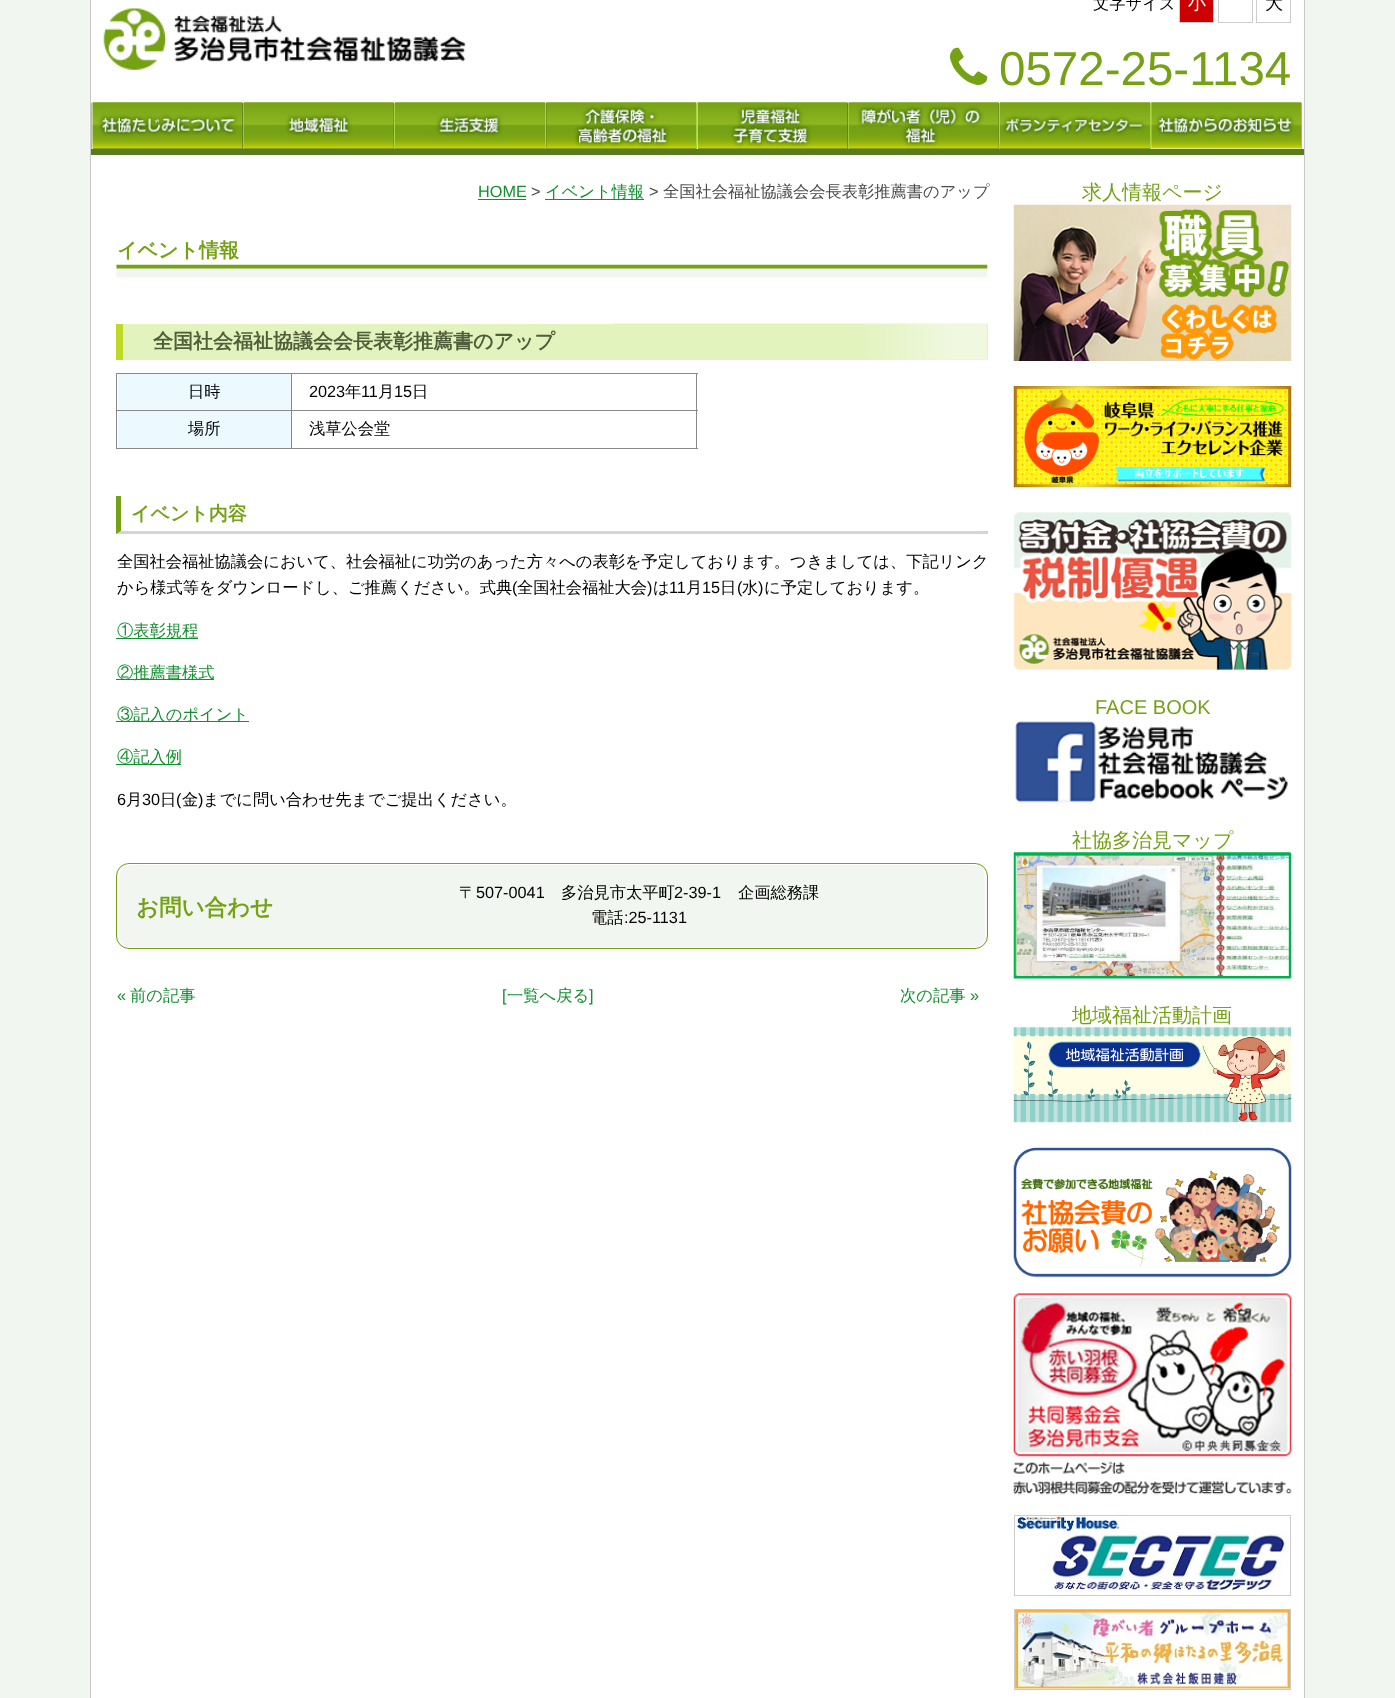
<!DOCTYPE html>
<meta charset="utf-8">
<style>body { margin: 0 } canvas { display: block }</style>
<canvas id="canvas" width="1395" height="1698"></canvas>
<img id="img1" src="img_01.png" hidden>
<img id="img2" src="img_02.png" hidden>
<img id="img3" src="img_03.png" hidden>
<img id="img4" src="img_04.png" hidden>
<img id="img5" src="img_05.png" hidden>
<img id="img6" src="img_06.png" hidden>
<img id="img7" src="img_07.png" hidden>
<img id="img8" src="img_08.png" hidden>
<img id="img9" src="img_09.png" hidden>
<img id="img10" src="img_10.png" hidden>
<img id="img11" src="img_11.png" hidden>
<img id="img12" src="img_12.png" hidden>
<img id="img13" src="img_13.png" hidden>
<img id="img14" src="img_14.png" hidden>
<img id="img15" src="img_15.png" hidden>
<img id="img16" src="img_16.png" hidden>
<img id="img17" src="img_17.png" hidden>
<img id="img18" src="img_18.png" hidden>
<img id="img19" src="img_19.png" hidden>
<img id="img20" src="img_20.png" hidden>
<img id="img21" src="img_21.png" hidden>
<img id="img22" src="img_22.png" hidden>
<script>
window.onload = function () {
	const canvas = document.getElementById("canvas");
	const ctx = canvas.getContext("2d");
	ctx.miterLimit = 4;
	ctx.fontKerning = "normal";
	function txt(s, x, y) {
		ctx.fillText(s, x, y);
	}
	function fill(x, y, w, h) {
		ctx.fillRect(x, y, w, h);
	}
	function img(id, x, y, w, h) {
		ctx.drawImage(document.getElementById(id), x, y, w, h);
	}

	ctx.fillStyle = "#F1F6F1";
	fill(0, 0, 1395, 1698);
	ctx.fillStyle = "#FFFFFF";
	fill(91, 0, 1213, 1698);
	ctx.fillStyle = "#C8C9C9";
	fill(1304, 0, 1, 1698);
	fill(90, 0, 1, 1698);
	ctx.fillStyle = "#CC0000";
	ctx.beginPath();
	ctx.rect(1179.5, -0.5, 34, 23);
	ctx.fill();
	ctx.strokeStyle = "#CCCCCC";
	ctx.stroke();
	ctx.strokeRect(1218.5, -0.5, 34, 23);
	ctx.strokeRect(1256.5, -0.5, 34, 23);
	img("img1", 103, 8, 363, 62);
	img("img2", 950, 47, 38, 38);
	ctx.fillStyle = "#597C21";
	fill(91, 149, 1213, 6);
	ctx.fillStyle = "#A6D443";
	fill(91, 103, 1, 46);
	ctx.fillStyle = "#4B6235";
	fill(93, 103, 150, 46);
	img("img3", 92, 102, 151, 47);
	ctx.fillStyle = "#A6D443";
	fill(243, 103, 1, 46);
	ctx.fillStyle = "#4B6235";
	fill(244, 103, 150, 46);
	img("img4", 243, 102, 151, 47);
	ctx.fillStyle = "#A6D443";
	fill(394, 103, 1, 46);
	ctx.fillStyle = "#4B6235";
	fill(395, 148, 150, 1);
	img("img5", 395, 102, 150, 47);
	ctx.fillStyle = "#A6D443";
	fill(545, 103, 1, 46);
	ctx.fillStyle = "#4B6235";
	fill(546, 103, 150, 46);
	img("img6", 546, 102, 151, 47);
	ctx.fillStyle = "#A6D443";
	fill(696, 103, 1, 46);
	ctx.fillStyle = "#4B6235";
	fill(698, 103, 150, 46);
	img("img7", 697, 102, 151, 47);
	ctx.fillStyle = "#A6D443";
	fill(848, 103, 1, 46);
	ctx.fillStyle = "#4B6235";
	fill(849, 103, 150, 46);
	img("img8", 848, 102, 151, 47);
	ctx.fillStyle = "#A6D443";
	fill(999, 103, 1, 46);
	ctx.fillStyle = "#4B6235";
	fill(1000, 148, 150, 1);
	img("img9", 1000, 102, 150, 47);
	ctx.fillStyle = "#A6D443";
	fill(1301, 103, 1, 46);
	fill(1150, 103, 1, 46);
	img("img10", 1151, 102, 151, 47);
	ctx.fillStyle = "#128F2E";
	fill(478, 199, 48, 1);
	fill(545, 199, 99, 1);
	img("img11", 1013, 204, 279, 157);
	img("img12", 1013, 386, 279, 102);
	img("img13", 1013, 512, 279, 158);
	img("img14", 1015, 721, 273, 82);
	img("img15", 1013, 852, 279, 127);
	img("img16", 1013, 1027, 279, 96);
	img("img17", 1013, 1147, 279, 131);
	img("img18", 1013, 1293, 279, 202);
	ctx.strokeRect(1014.5, 1515.5, 276, 80);
	img("img19", 1015, 1516, 274, 79);
	ctx.strokeRect(1014.5, 1609.5, 276, 80);
	img("img20", 1015, 1609, 275, 80);
	img("img21", 116, 264, 872, 14);
	ctx.fillStyle = "#E2F3BE";
	fill(123, 324, 865, 36);
	img("img22", 612, 323, 376, 37);
	ctx.fillStyle = "#BFDA25";
	fill(116, 324, 7, 36);
	ctx.fillStyle = "#898989";
	fill(116, 373, 582, 1);
	fill(696, 373, 1, 76);
	fill(116, 448, 582, 1);
	fill(116, 373, 1, 76);
	ctx.fillStyle = "#ECF9FF";
	fill(118, 374, 173, 36);
	ctx.fillStyle = "#898989";
	fill(291, 410, 407, 1);
	fill(291, 410, 1, 39);
	fill(116, 410, 177, 1);
	fill(291, 373, 1, 38);
	ctx.fillStyle = "#ECF9FF";
	fill(118, 411, 173, 37);
	ctx.fillStyle = "#D1D6D1";
	ctx.beginPath();
	ctx.moveTo(988, 534);
	ctx.lineTo(116, 534);
	ctx.lineTo(121, 531);
	ctx.lineTo(988, 531);
	ctx.closePath();
	ctx.fill();
	ctx.fillStyle = "#75A115";
	ctx.beginPath();
	ctx.moveTo(116, 534);
	ctx.lineTo(116, 496);
	ctx.lineTo(121, 496);
	ctx.lineTo(121, 531);
	ctx.closePath();
	ctx.fill();
	ctx.fillStyle = "#128F2E";
	fill(116, 638, 82, 1);
	fill(116, 679, 98, 1);
	fill(116, 721, 133, 1);
	fill(116, 764, 65, 1);
	ctx.fillStyle = "#F1F6F1";
	ctx.beginPath();
	ctx.roundRect(116.5, 863.5, 871, 85, 12.5);
	ctx.fill();
	ctx.strokeStyle = "#75A115";
	ctx.stroke();
	ctx.beginPath();
	ctx.roundRect(118.5, 864.5, 867, 83, 12.5);
	ctx.strokeStyle = "#FFFFFF";
	ctx.stroke();
	ctx.font = "500 16.25px WenQuanYi Zen Hei";
	ctx.fillStyle = "#000000";
	txt("文字サイズ", 1093, 9);
	ctx.font = "500 18px WenQuanYi Zen Hei";
	ctx.fillStyle = "#FFFFFF";
	txt("小", 1188, 9);
	ctx.fillStyle = "#000000";
	txt("大", 1265, 9);
	ctx.font = "47.5px Liberation Sans";
	ctx.fillStyle = "#75A115";
	txt("0572-25-1134", 999, 85);
	ctx.font = "16.25px Liberation Sans";
	ctx.fillStyle = "#128F2E";
	txt("HOME", 478, 197);
	ctx.fillStyle = "#4C4948";
	txt(">", 531, 197);
	ctx.font = "500 16.25px WenQuanYi Zen Hei";
	ctx.fillStyle = "#128F2E";
	txt("イベント情報", 545, 197);
	ctx.font = "16.25px Liberation Sans";
	ctx.fillStyle = "#4C4948";
	txt(">", 649, 197);
	ctx.font = "500 16.25px WenQuanYi Zen Hei";
	txt("全国社会福祉協議会会長表彰推薦書のアップ", 663, 197);
	ctx.font = "500 20px WenQuanYi Zen Hei";
	ctx.fillStyle = "#75A115";
	txt("求人情報ページ", 1082, 199);
	ctx.font = "20px Liberation Sans";
	txt("FACE BOOK", 1095, 714);
	ctx.font = "500 20px WenQuanYi Zen Hei";
	txt("社協多治見マップ", 1072, 847);
	txt("地域福祉活動計画", 1072, 1022);
	ctx.font = "bold 20px WenQuanYi Zen Hei";
	txt("イベント情報", 117, 257);
	ctx.fillStyle = "#4F5F3A";
	txt("全国社会福祉協議会会長表彰推薦書のアップ", 153, 348);
	ctx.font = "500 16.25px WenQuanYi Zen Hei";
	ctx.fillStyle = "#000000";
	txt("日時", 188, 397);
	ctx.font = "16.25px Liberation Sans";
	txt("2023", 309, 397);
	ctx.font = "500 16.25px WenQuanYi Zen Hei";
	txt("年", 345, 397);
	ctx.font = "16.25px Liberation Sans";
	txt("11", 361, 397);
	ctx.font = "500 16.25px WenQuanYi Zen Hei";
	txt("月", 378, 397);
	ctx.font = "16.25px Liberation Sans";
	txt("15", 394, 397);
	ctx.font = "500 16.25px WenQuanYi Zen Hei";
	txt("日", 412, 397);
	txt("場所", 188, 434);
	txt("浅草公会堂", 309, 434);
	ctx.font = "bold 19px WenQuanYi Zen Hei";
	ctx.fillStyle = "#75A115";
	txt("イベント内容", 131, 520);
	ctx.font = "500 16.25px WenQuanYi Zen Hei";
	ctx.fillStyle = "#000000";
	txt("全国社会福祉協議会において、社会福祉に功労のあった方々への表彰を予定しております。つきましては、下記リンク", 117, 567);
	txt("から様式等をダウンロードし、ご推薦ください。式典", 117, 593);
	ctx.font = "16.25px Liberation Sans";
	txt("(", 512, 593);
	ctx.font = "500 16.25px WenQuanYi Zen Hei";
	txt("全国社会福祉大会", 517, 593);
	ctx.font = "16.25px Liberation Sans";
	txt(")", 647, 593);
	ctx.font = "500 16.25px WenQuanYi Zen Hei";
	txt("は", 653, 593);
	ctx.font = "16.25px Liberation Sans";
	txt("11", 669, 593);
	ctx.font = "500 16.25px WenQuanYi Zen Hei";
	txt("月", 686, 593);
	ctx.font = "16.25px Liberation Sans";
	txt("15", 702, 593);
	ctx.font = "500 16.25px WenQuanYi Zen Hei";
	txt("日", 720, 593);
	ctx.font = "16.25px Liberation Sans";
	txt("(", 737, 593);
	ctx.font = "500 16.25px WenQuanYi Zen Hei";
	txt("水", 742, 593);
	ctx.font = "16.25px Liberation Sans";
	txt(")", 758, 593);
	ctx.font = "500 16.25px WenQuanYi Zen Hei";
	txt("に予定しております。", 764, 593);
	ctx.fillStyle = "#128F2E";
	txt("①表彰規程", 117, 636);
	txt("②推薦書様式", 117, 678);
	txt("③記入のポイント", 117, 720);
	txt("④記入例", 117, 762);
	ctx.font = "16.25px Liberation Sans";
	ctx.fillStyle = "#000000";
	txt("6", 117, 805);
	ctx.font = "500 16.25px WenQuanYi Zen Hei";
	txt("月", 126, 805);
	ctx.font = "16.25px Liberation Sans";
	txt("30", 142, 805);
	ctx.font = "500 16.25px WenQuanYi Zen Hei";
	txt("日", 160, 805);
	ctx.font = "16.25px Liberation Sans";
	txt("(", 176, 805);
	ctx.font = "500 16.25px WenQuanYi Zen Hei";
	txt("金", 182, 805);
	ctx.font = "16.25px Liberation Sans";
	txt(")", 198, 805);
	ctx.font = "500 16.25px WenQuanYi Zen Hei";
	txt("までに問い合わせ先までご提出ください。", 203, 805);
	ctx.font = "bold 22.5px WenQuanYi Zen Hei";
	ctx.fillStyle = "#75A115";
	txt("お問い合わせ", 136, 915);
	ctx.font = "500 16.25px WenQuanYi Zen Hei";
	ctx.fillStyle = "#000000";
	txt("〒", 459, 898);
	ctx.font = "16.25px Liberation Sans";
	txt("507-0041", 476, 898);
	ctx.font = "500 16.25px WenQuanYi Zen Hei";
	txt("多治見市太平町", 561, 898);
	ctx.font = "16.25px Liberation Sans";
	txt("2-39-1", 674, 898);
	ctx.font = "500 16.25px WenQuanYi Zen Hei";
	txt("企画総務課", 738, 898);
	txt("電話", 591, 923);
	ctx.font = "16.25px Liberation Sans";
	txt(":25-1131", 624, 923);
	ctx.fillStyle = "#128F2E";
	txt("«", 117, 1001);
	ctx.font = "500 16.25px WenQuanYi Zen Hei";
	txt("前の記事", 130, 1001);
	ctx.font = "16.25px Liberation Sans";
	txt("[", 502, 1001);
	ctx.font = "500 16.25px WenQuanYi Zen Hei";
	txt("一覧へ戻る", 507, 1001);
	ctx.font = "16.25px Liberation Sans";
	txt("]", 589, 1001);
	ctx.font = "500 16.25px WenQuanYi Zen Hei";
	txt("次の記事", 900, 1001);
	ctx.font = "16.25px Liberation Sans";
	txt("»", 970, 1001);
};
</script>
